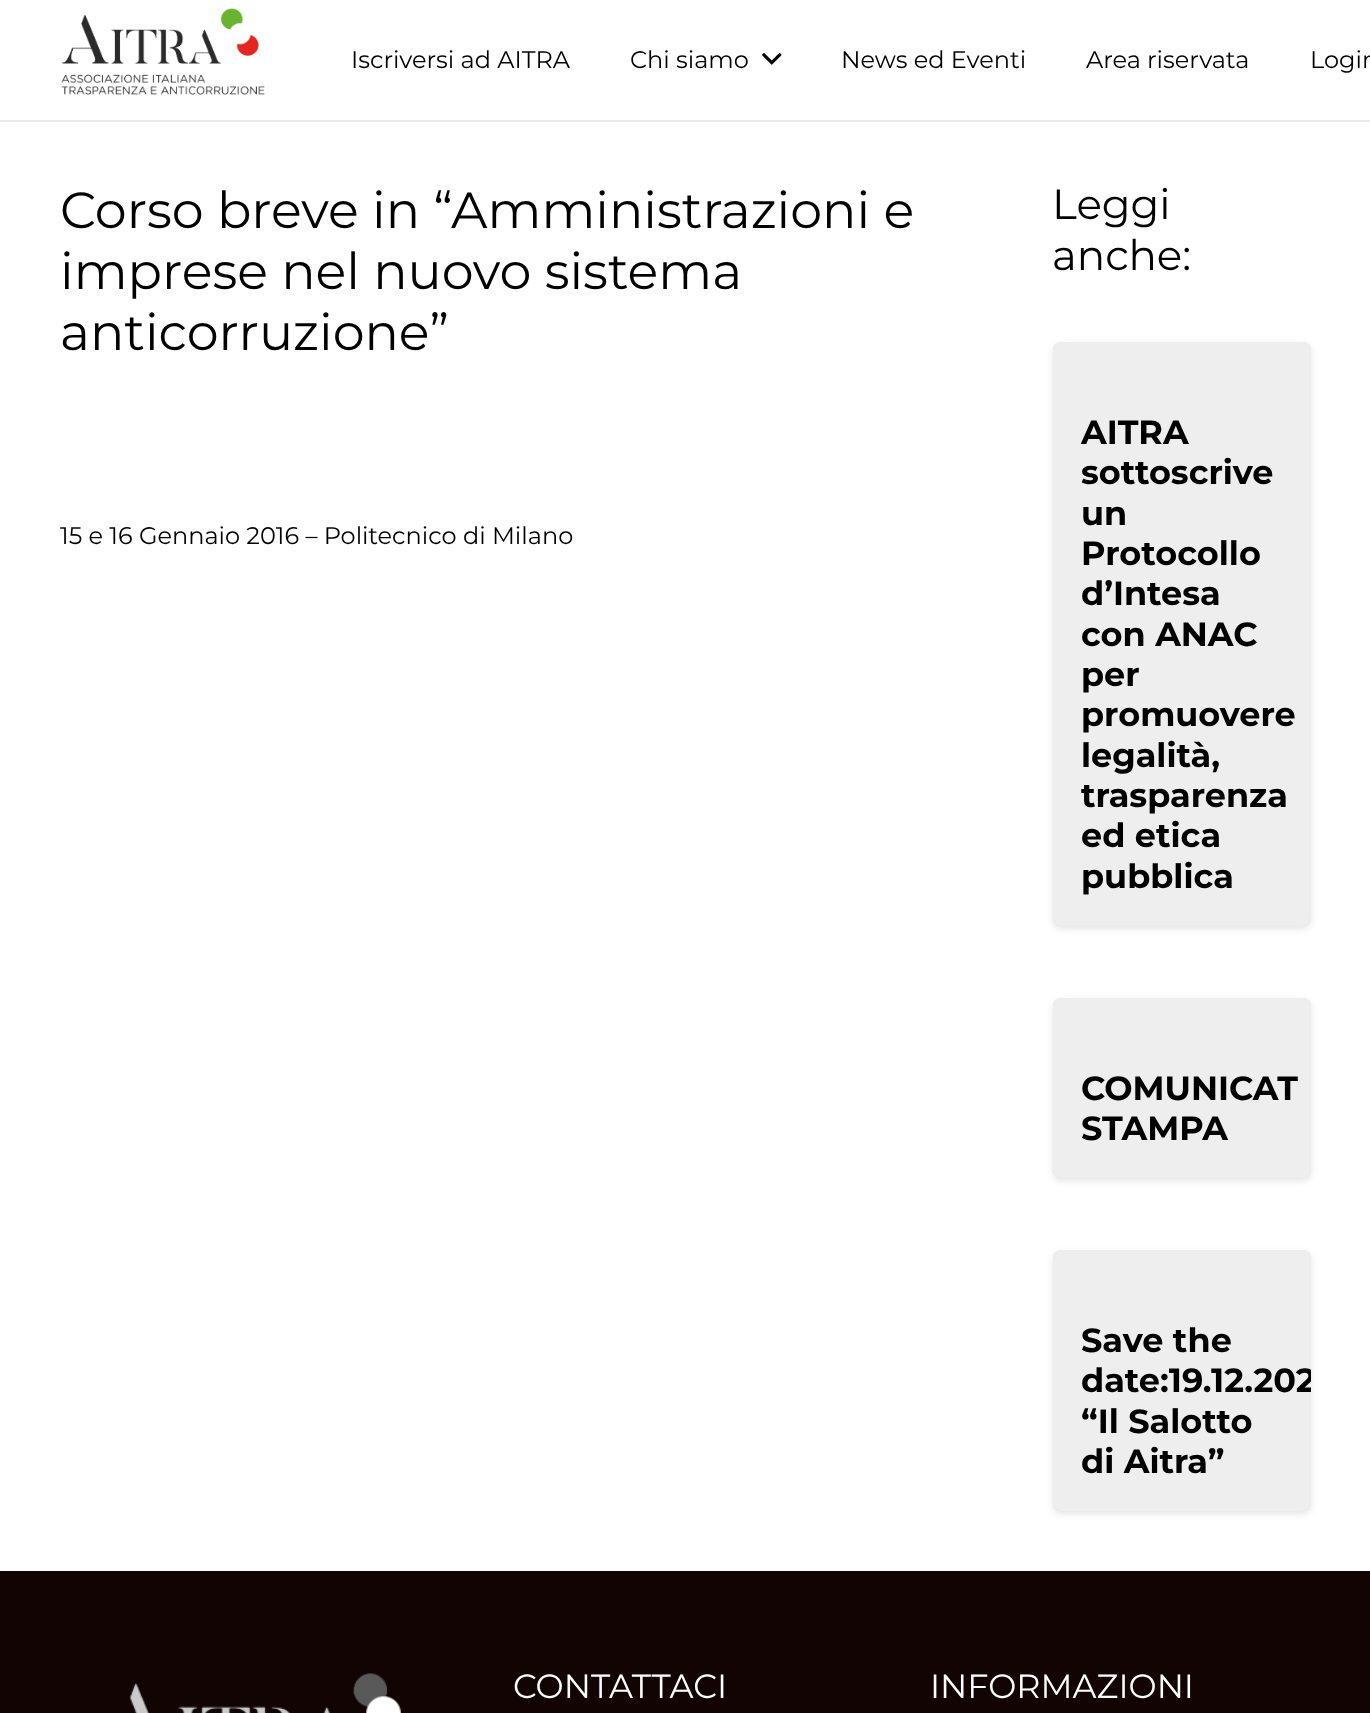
<!DOCTYPE html>
<meta charset="utf-8">
<style>body { margin: 0 } canvas { display: block }</style>
<canvas id="canvas" width="1370" height="1713"></canvas>
<img id="img1" src="img_01.png" hidden>
<img id="img2" src="img_02.png" hidden>
<img id="img3" src="img_03.png" hidden>
<script>
window.onload = function () {
	const canvas = document.getElementById("canvas");
	const ctx = canvas.getContext("2d");
	ctx.miterLimit = 4;
	ctx.fontKerning = "normal";
	function txt(s, x, y) {
		ctx.fillText(s, x, y);
	}
	function fill(x, y, w, h) {
		ctx.fillRect(x, y, w, h);
	}
	function round(x, y, w, h, r) {
		ctx.beginPath();
		ctx.roundRect(x, y, w, h, r);
		ctx.fill();
	}
	function img(id, x, y, w, h) {
		ctx.drawImage(document.getElementById(id), x, y, w, h);
	}

	ctx.fillStyle = "#FFFFFF";
	fill(0, 0, 1370, 1713);
	ctx.fillStyle = "#EBEBEB";
	fill(0, 120, 1370, 2);
	img("img1", 61, 8, 204, 87);
	img("img2", 762, 53, 20, 12);
	ctx.fillStyle = "rgba(0, 0, 0, 0.1)";
	ctx.filter = "blur(3.5px)";
	ctx.beginPath();
	ctx.roundRect(1053, 345, 258, 584, 8);
	ctx.fill();
	ctx.filter = "none";
	ctx.filter = "blur(0.5px)";
	ctx.beginPath();
	ctx.roundRect(1053, 342, 258, 584, 8);
	ctx.fill();
	ctx.filter = "none";
	ctx.fillStyle = "#EEEEEE";
	round(1053, 342, 258, 584, 8);
	ctx.fillStyle = "rgba(0, 0, 0, 0.1)";
	ctx.filter = "blur(3.5px)";
	ctx.beginPath();
	ctx.roundRect(1053, 1001, 258, 180, 8);
	ctx.fill();
	ctx.filter = "none";
	ctx.filter = "blur(0.5px)";
	ctx.beginPath();
	ctx.roundRect(1053, 998, 258, 180, 8);
	ctx.fill();
	ctx.filter = "none";
	ctx.fillStyle = "#EEEEEE";
	round(1053, 998, 258, 180, 8);
	ctx.fillStyle = "rgba(0, 0, 0, 0.1)";
	ctx.filter = "blur(3.5px)";
	ctx.beginPath();
	ctx.roundRect(1053, 1253, 258, 261, 8);
	ctx.fill();
	ctx.filter = "none";
	ctx.filter = "blur(0.5px)";
	ctx.beginPath();
	ctx.roundRect(1053, 1250, 258, 261, 8);
	ctx.fill();
	ctx.filter = "none";
	ctx.fillStyle = "#EEEEEE";
	round(1053, 1250, 258, 261, 8);
	ctx.fillStyle = "#130404";
	fill(0, 1571, 1370, 142);
	img("img3", 129, 1673, 272, 40);
	ctx.font = "24px Montserrat";
	ctx.fillStyle = "#000000";
	txt("Iscriversi ad AITRA", 351, 68);
	txt("Chi siamo", 630, 68);
	txt("News ed Eventi", 841, 68);
	txt("Area riservata", 1086, 68);
	txt("Login", 1310, 68);
	ctx.font = "50.8px Montserrat";
	txt("Corso breve in “Amministrazioni e", 60, 228);
	txt("imprese nel nuovo sistema", 60, 289);
	txt("anticorruzione”", 60, 350);
	ctx.font = "24px Montserrat";
	txt("15 e 16 Gennaio 2016 – Politecnico di Milano", 60, 544);
	ctx.font = "42px Montserrat";
	txt("Leggi", 1052, 219);
	txt("anche:", 1052, 270);
	ctx.font = "bold 33.5px Montserrat";
	txt("AITRA", 1081, 444);
	txt("sottoscrive", 1081, 484);
	txt("un", 1081, 525);
	txt("Protocollo", 1081, 565);
	txt("d’Intesa", 1081, 605);
	txt("con ANAC", 1081, 646);
	txt("per", 1081, 686);
	txt("promuovere", 1081, 726);
	txt("legalità,", 1081, 767);
	txt("trasparenza", 1081, 807);
	txt("ed etica", 1081, 847);
	txt("pubblica", 1081, 888);
	txt("COMUNICAT", 1081, 1100);
	txt("STAMPA", 1081, 1140);
	txt("Save the", 1081, 1352);
	ctx.save();
	ctx.beginPath();
	ctx.roundRect(1053, 1250, 258, 261, 8);
	ctx.clip();
	txt("date:19.12.202", 1081, 1392);
	ctx.restore();
	txt("“Il Salotto", 1081, 1433);
	txt("di Aitra”", 1081, 1473);
	ctx.font = "33.5px Montserrat";
	ctx.fillStyle = "#FFFFFF";
	txt("CONTATTACI", 513, 1698);
	txt("INFORMAZIONI", 930, 1698);
};
</script>
